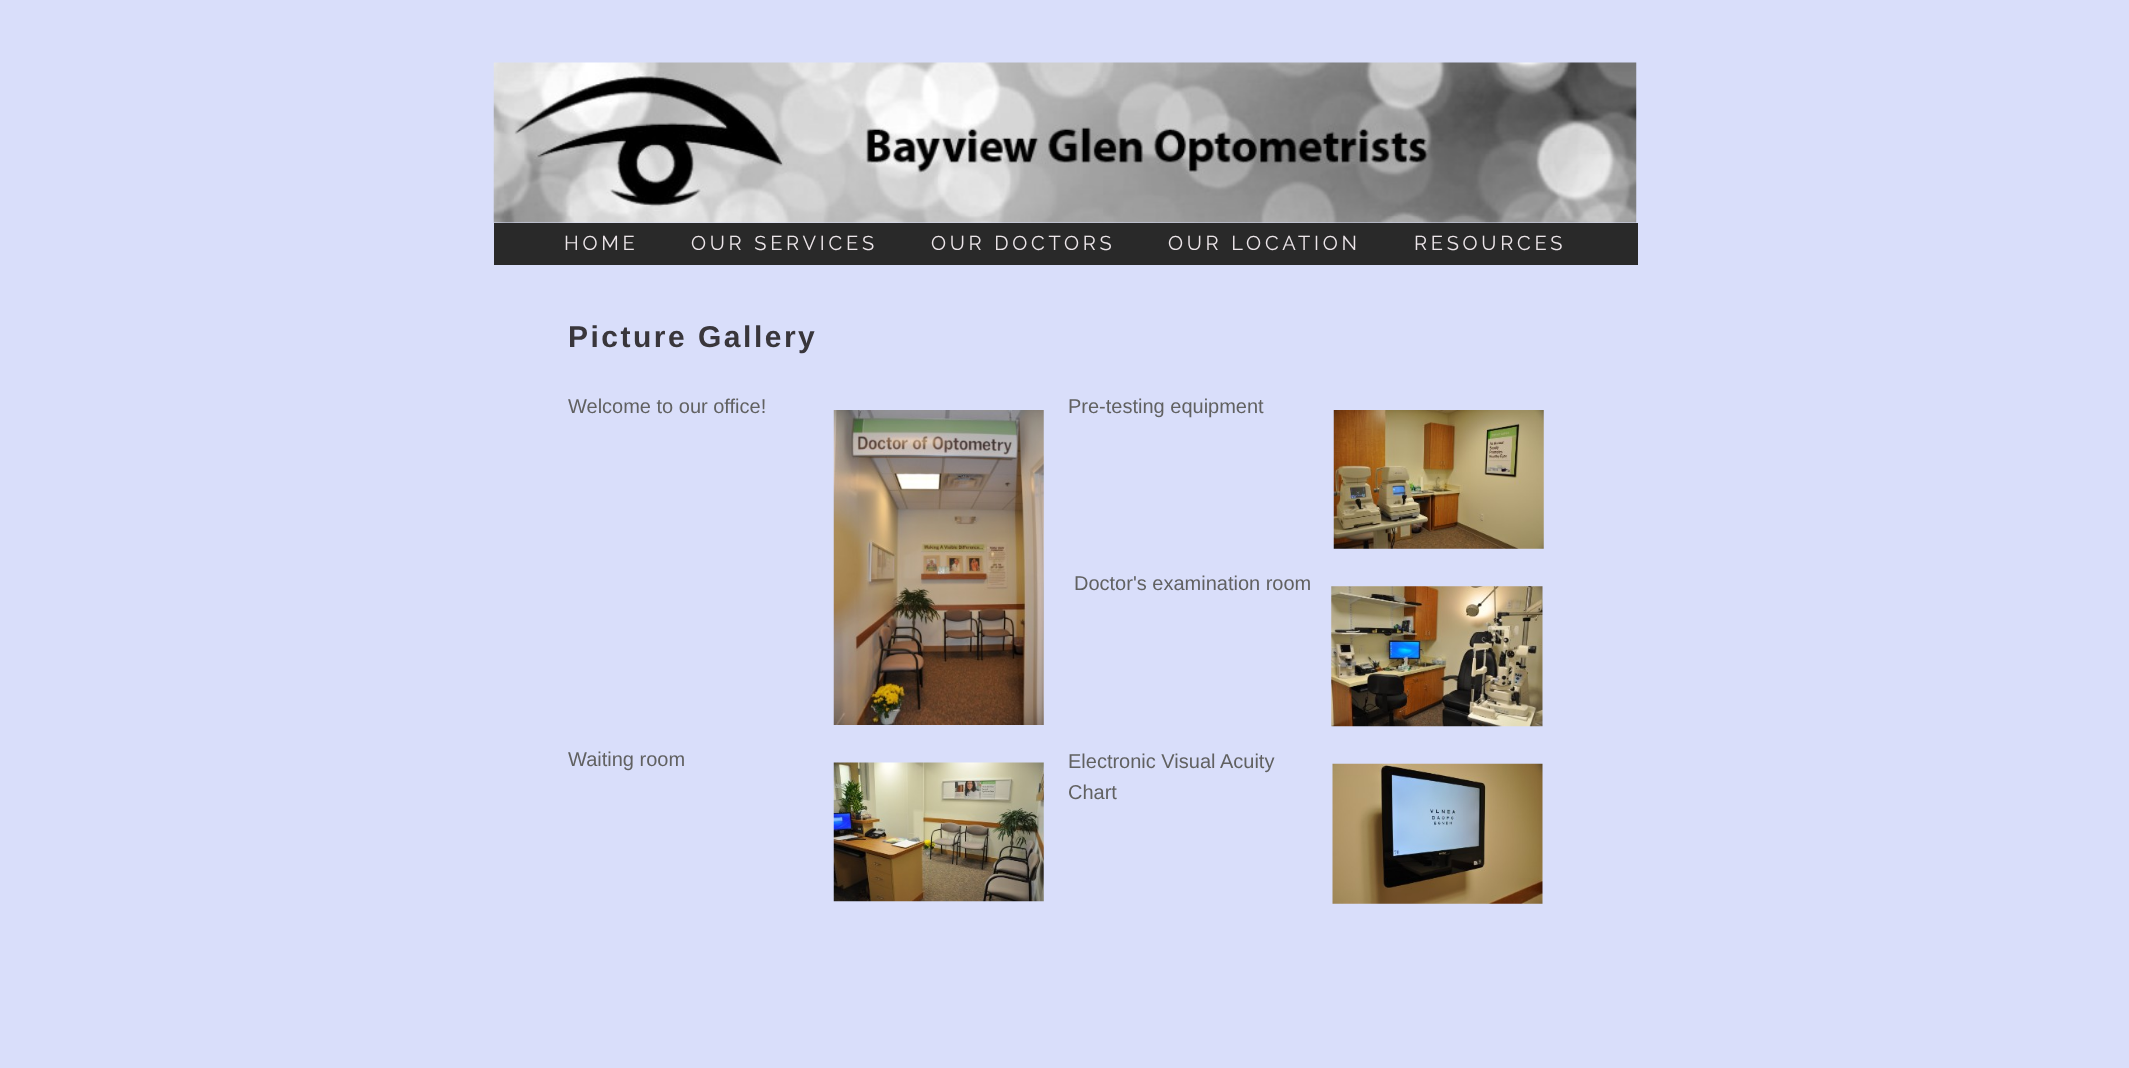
<!DOCTYPE html>
<meta charset="utf-8">
<style>body { margin: 0 } canvas { display: block }</style>
<canvas id="canvas" width="2129" height="1068"></canvas>
<img id="img1" src="img_01.png" hidden>
<img id="img2" src="img_02.png" hidden>
<img id="img3" src="img_03.png" hidden>
<img id="img4" src="img_04.png" hidden>
<img id="img5" src="img_05.png" hidden>
<img id="img6" src="img_06.png" hidden>
<script>
window.onload = function () {
	const canvas = document.getElementById("canvas");
	const ctx = canvas.getContext("2d");
	ctx.miterLimit = 4;
	ctx.fontKerning = "normal";
	function txt(s, x, y) {
		ctx.fillText(s, x, y);
	}
	function fill(x, y, w, h) {
		ctx.fillRect(x, y, w, h);
	}
	function img(id, x, y, w, h) {
		ctx.drawImage(document.getElementById(id), x, y, w, h);
	}

	ctx.fillStyle = "#D9DEFA";
	fill(0, 0, 2129, 1068);
	img("img1", 493, 62, 1144, 161);
	ctx.fillStyle = "#292929";
	fill(494, 223, 1144, 42);
	img("img2", 833, 410, 211, 315);
	img("img3", 833, 762, 211, 140);
	img("img4", 1333, 410, 211, 139);
	img("img5", 1331, 586, 212, 141);
	img("img6", 1332, 763, 211, 141);
	ctx.letterSpacing = "3.75px";
	ctx.font = "20px Raleway";
	ctx.fillStyle = "#ECE5E9";
	txt("HOME", 564, 250);
	txt("OUR SERVICES", 691, 250);
	txt("OUR DOCTORS", 931, 250);
	txt("OUR LOCATION", 1168, 250);
	txt("RESOURCES", 1414, 250);
	ctx.letterSpacing = "2.5px";
	ctx.font = "bold 30px Liberation Sans";
	ctx.fillStyle = "#39363B";
	txt("Picture Gallery", 568, 347);
	ctx.letterSpacing = "0px";
	ctx.font = "20px Liberation Sans";
	ctx.fillStyle = "#616161";
	txt("Welcome to our office!", 568, 413);
	txt("Waiting room", 568, 766);
	txt("Pre-testing equipment", 1068, 413);
	txt("Doctor's examination room", 1074, 590);
	txt("Electronic Visual Acuity", 1068, 768);
	txt("Chart", 1068, 799);
};
</script>
